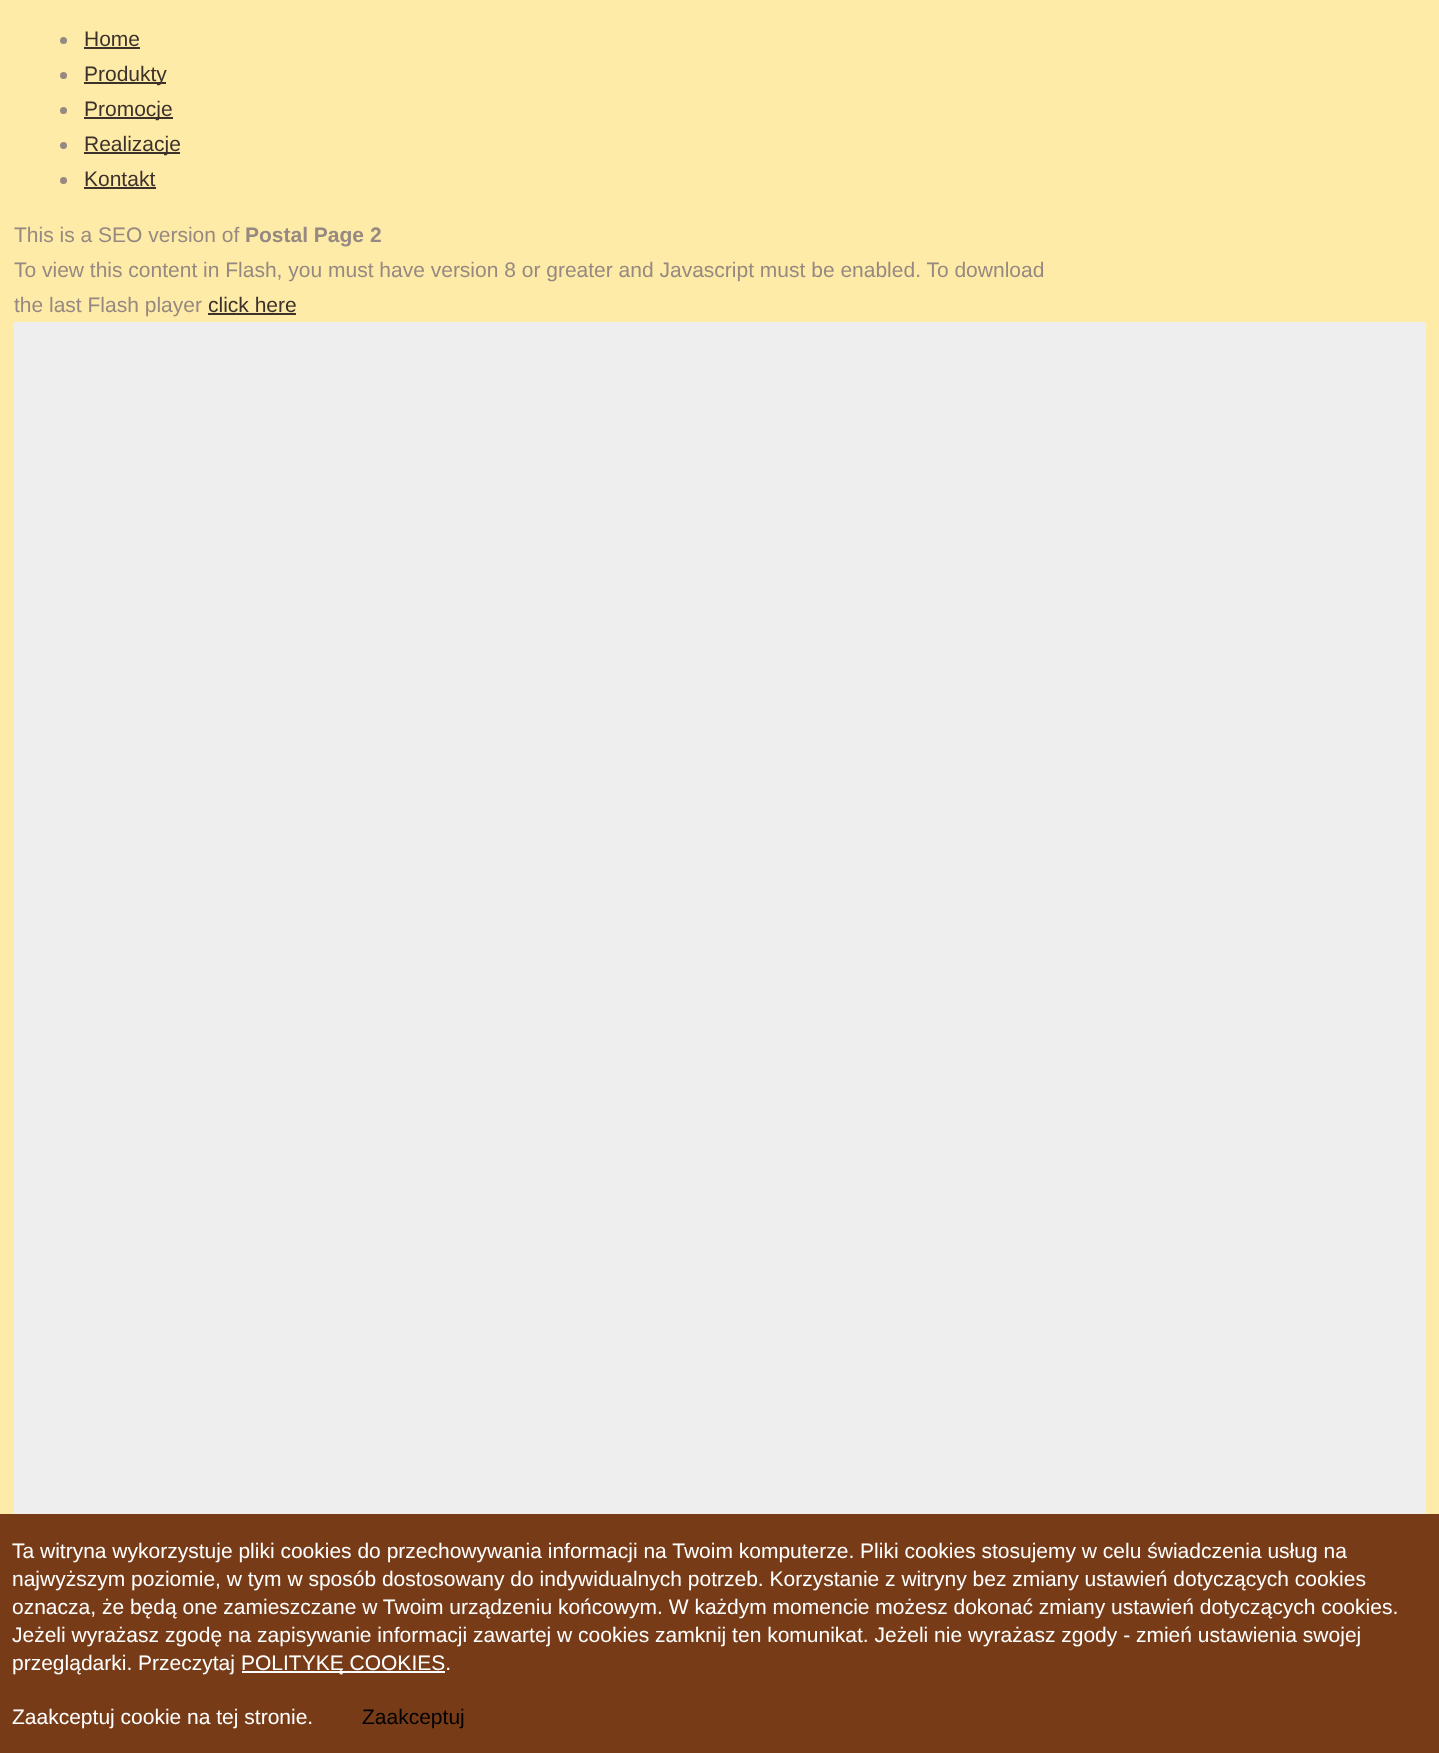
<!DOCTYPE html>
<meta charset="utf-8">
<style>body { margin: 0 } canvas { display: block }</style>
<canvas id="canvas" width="1439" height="1753"></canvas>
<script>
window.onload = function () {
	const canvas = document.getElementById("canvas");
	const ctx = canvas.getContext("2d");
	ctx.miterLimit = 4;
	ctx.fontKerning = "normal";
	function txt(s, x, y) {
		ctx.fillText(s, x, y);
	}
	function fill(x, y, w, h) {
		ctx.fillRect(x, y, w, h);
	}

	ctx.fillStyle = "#FFEBA8";
	fill(0, 0, 1439, 1753);
	ctx.fillStyle = "#968981";
	ctx.beginPath();
	ctx.arc(63.5, 40.5, 3.5, 0, Math.PI * 2);
	ctx.fill();
	ctx.fillStyle = "#3C312B";
	fill(84, 47, 56, 2);
	ctx.fillStyle = "#968981";
	ctx.beginPath();
	ctx.arc(63.5, 75.5, 3.5, 0, Math.PI * 2);
	ctx.fill();
	ctx.fillStyle = "#3C312B";
	fill(84, 82, 82, 2);
	ctx.fillStyle = "#968981";
	ctx.beginPath();
	ctx.arc(63.5, 110.5, 3.5, 0, Math.PI * 2);
	ctx.fill();
	ctx.fillStyle = "#3C312B";
	fill(84, 117, 89, 2);
	ctx.fillStyle = "#968981";
	ctx.beginPath();
	ctx.arc(63.5, 145.5, 3.5, 0, Math.PI * 2);
	ctx.fill();
	ctx.fillStyle = "#3C312B";
	fill(84, 152, 96, 2);
	ctx.fillStyle = "#968981";
	ctx.beginPath();
	ctx.arc(63.5, 180.5, 3.5, 0, Math.PI * 2);
	ctx.fill();
	ctx.fillStyle = "#3C312B";
	fill(84, 187, 72, 2);
	fill(208, 313, 88, 2);
	ctx.fillStyle = "#EEEEEE";
	fill(14, 322, 1412, 1192);
	ctx.fillStyle = "#773C17";
	fill(0, 1514, 1439, 239);
	ctx.fillStyle = "#FFFFFF";
	fill(242, 1671, 203, 2);
	ctx.font = "21px Liberation Sans";
	ctx.fillStyle = "#3C312B";
	txt("Home", 84, 46);
	txt("Produkty", 84, 81);
	txt("Promocje", 84, 116);
	txt("Realizacje", 84, 151);
	txt("Kontakt", 84, 186);
	ctx.fillStyle = "#968981";
	txt("This is a SEO version of", 14, 242);
	ctx.font = "bold 21px Liberation Sans";
	txt("Postal Page 2", 245, 242);
	ctx.font = "21px Liberation Sans";
	txt("To view this content in Flash, you must have version 8 or greater and Javascript must be enabled. To download", 14, 277);
	txt("the last Flash player", 14, 312);
	ctx.fillStyle = "#3C312B";
	txt("click here", 208, 312);
	ctx.fillStyle = "#FFFFFF";
	txt("Ta witryna wykorzystuje pliki cookies do przechowywania informacji na Twoim komputerze. Pliki cookies stosujemy w celu świadczenia usług na", 12, 1558);
	txt("najwyższym poziomie, w tym w sposób dostosowany do indywidualnych potrzeb. Korzystanie z witryny bez zmiany ustawień dotyczących cookies", 12, 1586);
	txt("oznacza, że będą one zamieszczane w Twoim urządzeniu końcowym. W każdym momencie możesz dokonać zmiany ustawień dotyczących cookies.", 12, 1614);
	txt("Jeżeli wyrażasz zgodę na zapisywanie informacji zawartej w cookies zamknij ten komunikat. Jeżeli nie wyrażasz zgody - zmień ustawienia swojej", 12, 1642);
	txt("przeglądarki. Przeczytaj", 12, 1670);
	txt("POLITYKĘ COOKIES.", 241, 1670);
	txt("Zaakceptuj cookie na tej stronie.", 12, 1724);
	ctx.fillStyle = "#000000";
	txt("Zaakceptuj", 362, 1724);
};
</script>
